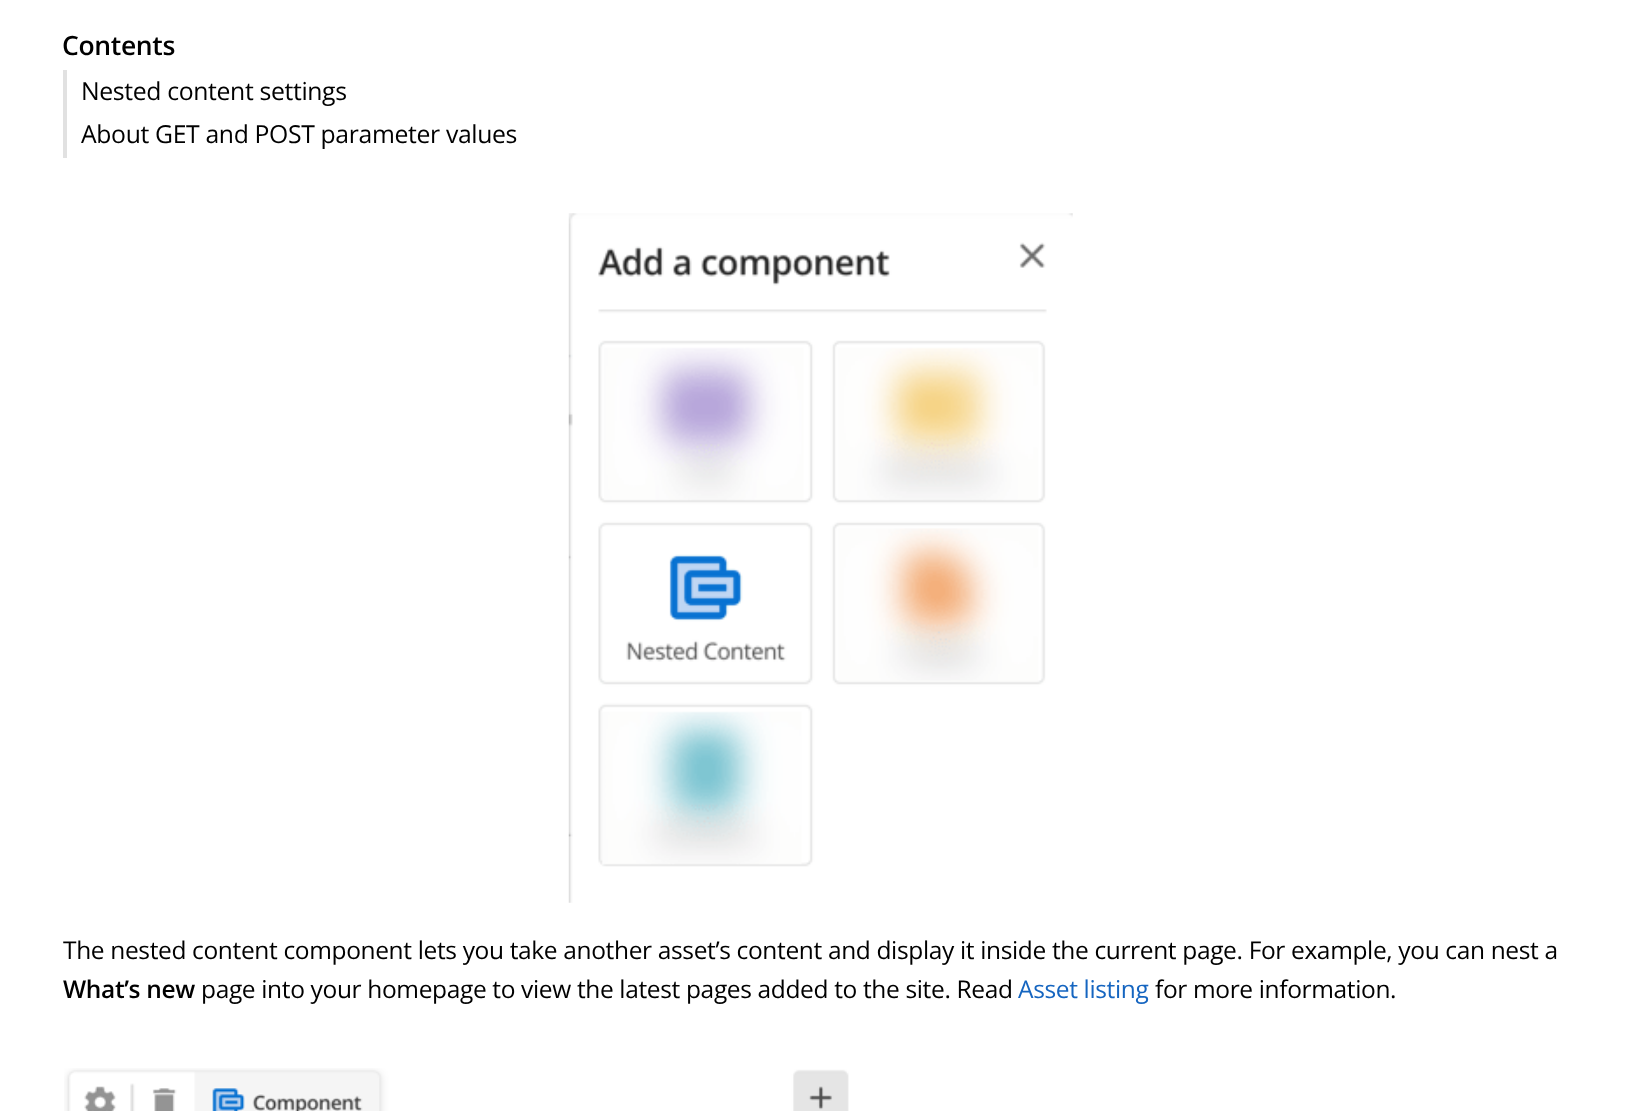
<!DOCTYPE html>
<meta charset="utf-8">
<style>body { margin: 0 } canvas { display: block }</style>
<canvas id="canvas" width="1640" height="1111"></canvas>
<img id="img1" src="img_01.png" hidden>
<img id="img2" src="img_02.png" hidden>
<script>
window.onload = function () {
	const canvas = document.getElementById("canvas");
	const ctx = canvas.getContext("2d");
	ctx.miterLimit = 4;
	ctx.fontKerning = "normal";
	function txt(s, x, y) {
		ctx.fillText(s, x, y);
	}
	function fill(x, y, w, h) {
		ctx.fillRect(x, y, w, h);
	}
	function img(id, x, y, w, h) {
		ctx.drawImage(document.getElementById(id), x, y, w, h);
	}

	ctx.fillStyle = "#FFFFFF";
	fill(0, 0, 1640, 1111);
	ctx.fillStyle = "#E1E1E1";
	fill(63, 70, 4, 88);
	img("img1", 568, 213, 505, 690);
	img("img2", 64, 1068, 785, 43);
	ctx.letterSpacing = "-0.35px";
	ctx.font = "600 26.5px Open Sans";
	ctx.fillStyle = "#000000";
	txt("Contents", 62, 55);
	ctx.font = "24.75px Open Sans";
	txt("Nested content settings", 81, 100);
	txt("About GET and POST parameter values", 81, 143);
	ctx.font = "24.5px Open Sans";
	txt("The nested content component lets you take another asset’s content and display it inside the current page. For example, you can nest a", 63, 959);
	ctx.font = "600 24.5px Open Sans";
	txt("What’s new", 63, 998);
	ctx.font = "24.5px Open Sans";
	txt("page into your homepage to view the latest pages added to the site. Read", 201, 998);
	ctx.fillStyle = "#1565C0";
	txt("Asset listing", 1018, 998);
	ctx.fillStyle = "#000000";
	txt("for more information.", 1155, 998);
};
</script>
